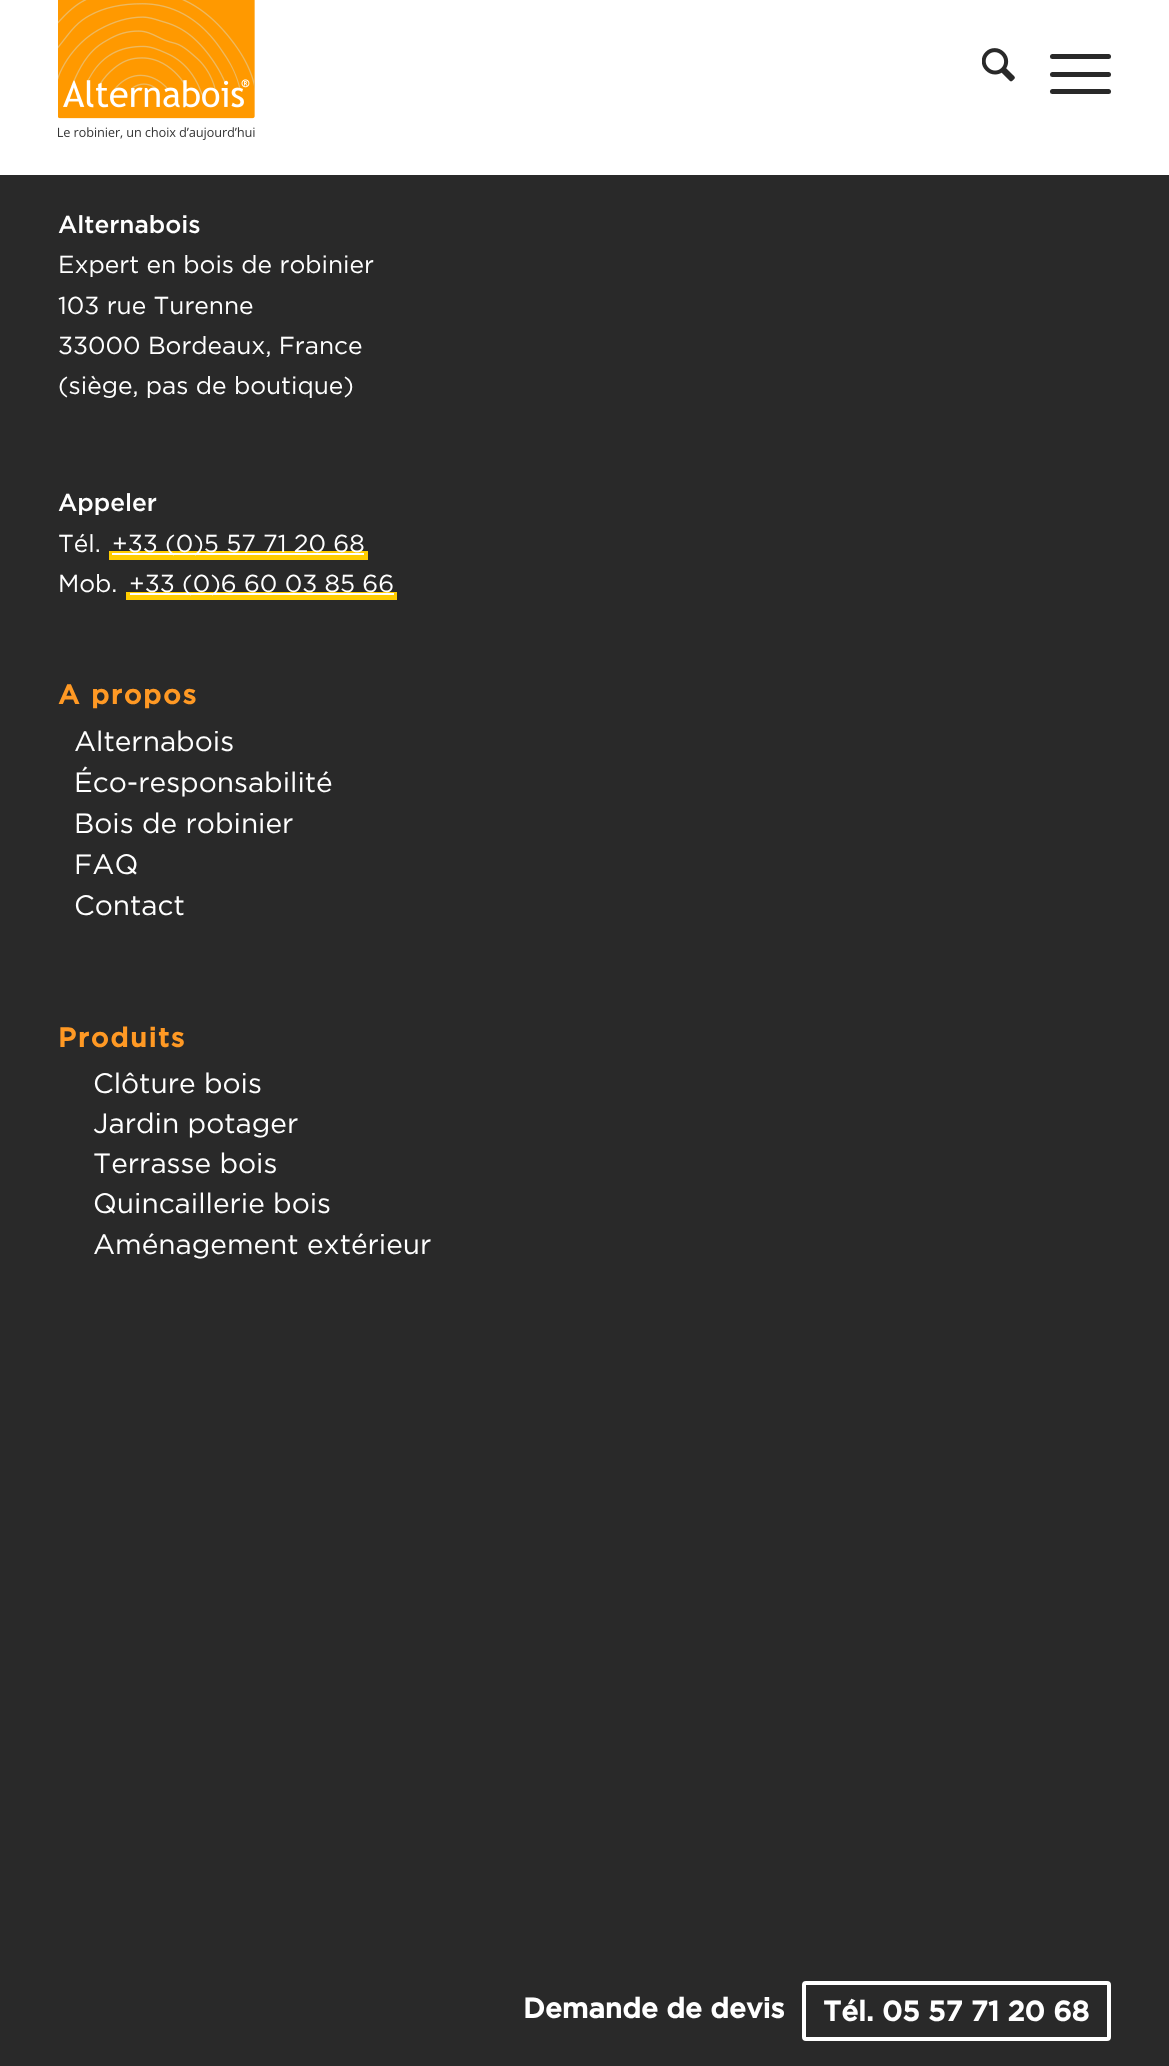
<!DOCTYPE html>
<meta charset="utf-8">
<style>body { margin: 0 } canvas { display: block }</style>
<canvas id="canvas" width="1169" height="2066"></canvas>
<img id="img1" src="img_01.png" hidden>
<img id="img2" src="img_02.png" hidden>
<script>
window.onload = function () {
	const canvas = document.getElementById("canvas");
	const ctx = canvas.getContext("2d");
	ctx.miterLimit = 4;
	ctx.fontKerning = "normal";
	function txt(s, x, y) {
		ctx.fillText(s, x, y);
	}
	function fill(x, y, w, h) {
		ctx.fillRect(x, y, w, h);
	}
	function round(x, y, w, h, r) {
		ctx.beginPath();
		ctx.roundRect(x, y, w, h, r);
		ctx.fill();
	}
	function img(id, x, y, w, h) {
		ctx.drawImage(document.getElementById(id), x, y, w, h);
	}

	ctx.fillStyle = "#292929";
	fill(0, 0, 1169, 2066);
	ctx.fillStyle = "#FFFFFF";
	fill(0, 0, 1169, 175);
	img("img1", 58, 0, 197, 140);
	img("img2", 982, 48, 33, 34);
	ctx.fillStyle = "#292929";
	round(1050, 72, 61, 5, 2.5);
	round(1050, 54, 61, 5, 2.5);
	round(1050, 89, 61, 5, 2.5);
	ctx.fillStyle = "#FFCC00";
	fill(109, 551, 259, 9);
	ctx.fillStyle = "#FFFFFF";
	fill(112, 553, 252, 2);
	ctx.fillStyle = "#FFCC00";
	fill(126, 592, 271, 8);
	ctx.fillStyle = "#FFFFFF";
	fill(130, 593, 264, 2);
	ctx.beginPath();
	ctx.roundRect(804, 1983, 305, 56, 2);
	ctx.strokeStyle = "#FFFFFF";
	ctx.lineWidth = 4;
	ctx.stroke();
	ctx.font = "500 24.5px Gotham";
	txt("Alternabois", 58, 233);
	ctx.font = "24.5px Gotham";
	txt("Expert en bois de robinier", 58, 273);
	txt("103 rue Turenne", 58, 314);
	txt("33000 Bordeaux, France", 58, 354);
	txt("(siège, pas de boutique)", 58, 394);
	ctx.font = "500 24.5px Gotham";
	txt("Appeler", 58, 511);
	ctx.font = "24.5px Gotham";
	txt("Tél.", 58, 552);
	txt("+33 (0)5 57 71 20 68", 112, 552);
	txt("Mob.", 58, 592);
	txt("+33 (0)6 60 03 85 66", 129, 592);
	ctx.letterSpacing = "1.75px";
	ctx.font = "bold 27px Gotham";
	ctx.fillStyle = "#FF9924";
	txt("A propos", 58, 704);
	ctx.letterSpacing = "0px";
	ctx.font = "28px Gotham";
	ctx.fillStyle = "#FFFFFF";
	txt("Alternabois", 74, 751);
	txt("Éco-responsabilité", 74, 792);
	txt("Bois de robinier", 74, 833);
	txt("FAQ", 74, 874);
	txt("Contact", 74, 915);
	ctx.letterSpacing = "1.75px";
	ctx.font = "bold 27px Gotham";
	ctx.fillStyle = "#FF9924";
	txt("Produits", 58, 1047);
	ctx.letterSpacing = "0px";
	ctx.font = "28px Gotham";
	ctx.fillStyle = "#FFFFFF";
	txt("Clôture bois", 93, 1093);
	txt("Jardin potager", 93, 1133);
	txt("Terrasse bois", 93, 1173);
	txt("Quincaillerie bois", 93, 1213);
	txt("Aménagement extérieur", 93, 1254);
	ctx.font = "bold 28px Gotham";
	txt("Demande de devis", 523, 2018);
	txt("Tél. 05 57 71 20 68", 823, 2021);
};
</script>
